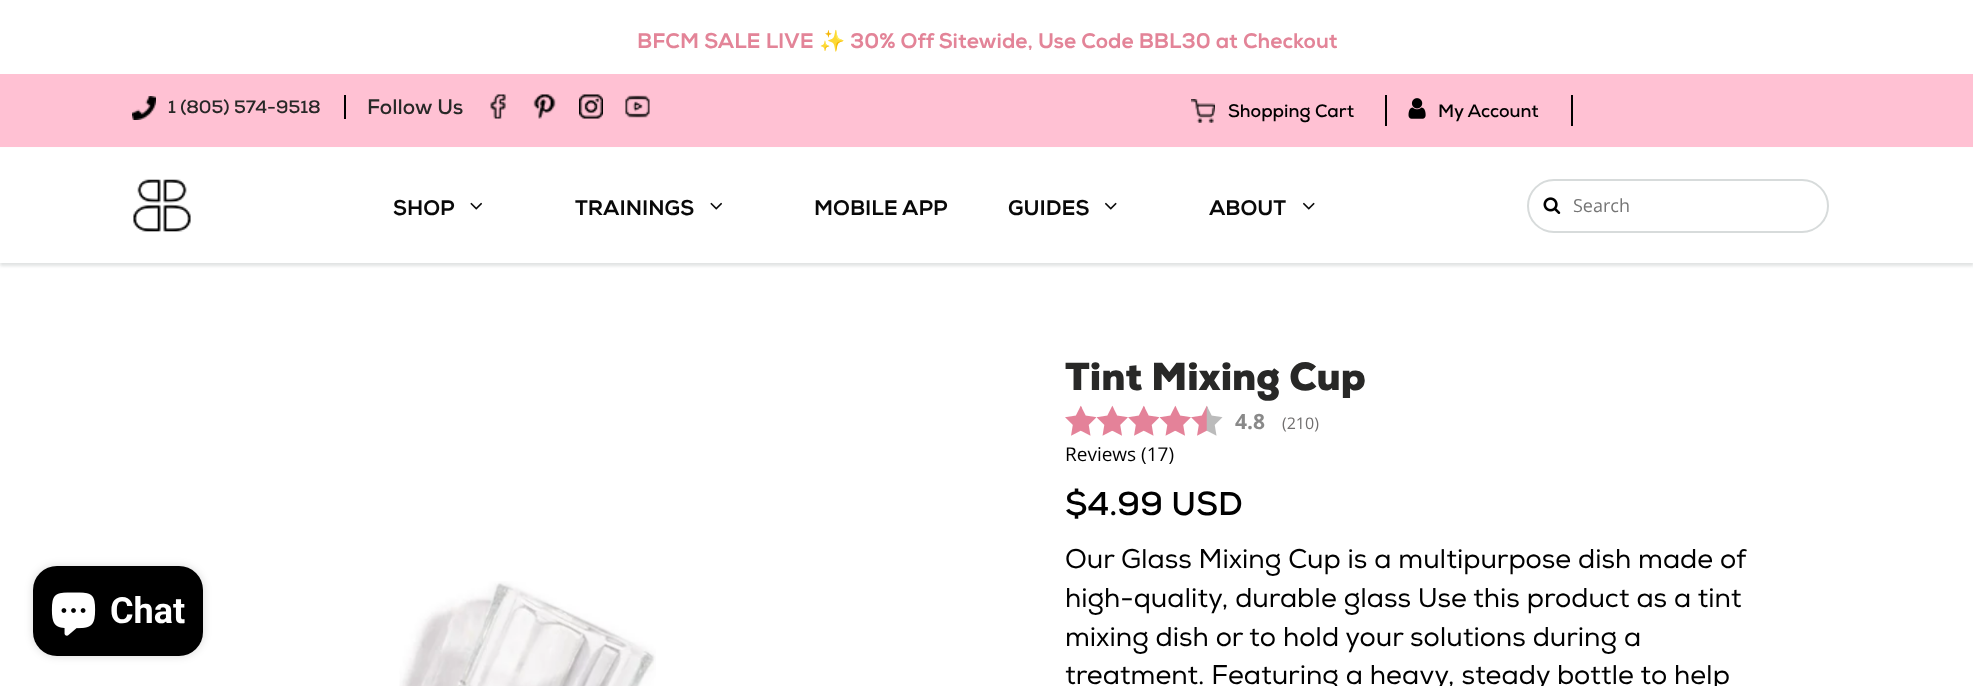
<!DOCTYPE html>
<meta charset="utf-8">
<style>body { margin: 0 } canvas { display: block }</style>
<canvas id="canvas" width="1973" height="686"></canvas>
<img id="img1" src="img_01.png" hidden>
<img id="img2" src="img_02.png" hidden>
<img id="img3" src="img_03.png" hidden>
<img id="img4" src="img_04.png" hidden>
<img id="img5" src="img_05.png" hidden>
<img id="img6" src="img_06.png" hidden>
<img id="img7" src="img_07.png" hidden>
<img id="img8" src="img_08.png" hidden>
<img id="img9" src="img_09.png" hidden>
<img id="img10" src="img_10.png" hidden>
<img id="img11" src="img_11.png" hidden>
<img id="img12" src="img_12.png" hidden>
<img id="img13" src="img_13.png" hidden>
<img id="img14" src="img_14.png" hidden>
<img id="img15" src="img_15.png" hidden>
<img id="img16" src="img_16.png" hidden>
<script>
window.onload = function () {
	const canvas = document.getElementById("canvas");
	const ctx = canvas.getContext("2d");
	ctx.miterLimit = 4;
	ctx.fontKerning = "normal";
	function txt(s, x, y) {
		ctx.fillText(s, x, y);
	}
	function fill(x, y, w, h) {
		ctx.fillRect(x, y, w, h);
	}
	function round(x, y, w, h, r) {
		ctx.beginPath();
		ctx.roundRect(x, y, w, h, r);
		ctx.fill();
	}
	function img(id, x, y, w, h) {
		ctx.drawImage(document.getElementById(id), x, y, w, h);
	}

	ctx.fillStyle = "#FFFFFF";
	fill(0, 0, 1973, 686);
	ctx.fillStyle = "rgba(0, 0, 0, 0.15)";
	ctx.filter = "blur(4px)";
	ctx.beginPath();
	ctx.roundRect(33, 566, 170, 90, 24);
	ctx.fill();
	ctx.filter = "none";
	ctx.fillStyle = "#000000";
	round(33, 566, 170, 90, 24);
	img("img1", 51, 592, 45, 44);
	ctx.fillStyle = "#FFC1D3";
	fill(0, 74, 1973, 73);
	img("img2", 132, 96, 24, 24);
	ctx.fillStyle = "#000000";
	fill(344, 95, 2, 24);
	img("img3", 490, 94, 16, 25);
	img("img4", 533, 94, 23, 25);
	img("img5", 579, 94, 24, 25);
	img("img6", 625, 95, 25, 23);
	fill(1571, 95, 2, 31);
	img("img7", 1191, 99, 24, 24);
	fill(1385, 95, 2, 31);
	img("img8", 1408, 98, 18, 21);
	ctx.fillStyle = "rgba(11, 25, 28, 0.12)";
	ctx.filter = "blur(1.5px)";
	ctx.beginPath();
	ctx.rect(0, 150, 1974, 116);
	ctx.fill();
	ctx.filter = "none";
	ctx.fillStyle = "#FFFFFF";
	fill(0, 148, 1973, 115);
	img("img9", 133, 179, 58, 53);
	img("img10", 470, 202, 12, 8);
	img("img10", 710, 202, 12, 8);
	img("img11", 1105, 202, 12, 8);
	img("img11", 1303, 202, 12, 8);
	ctx.beginPath();
	ctx.roundRect(1528, 180, 300, 52, 26);
	ctx.strokeStyle = "#D7DBDB";
	ctx.lineWidth = 2;
	ctx.stroke();
	img("img12", 1543, 197, 18, 17);
	img("img13", 399, 581, 257, 105);
	img("img14", 1065, 405, 32, 31);
	img("img15", 1097, 405, 31, 31);
	img("img14", 1128, 405, 32, 31);
	img("img15", 1160, 405, 31, 31);
	img("img16", 1191, 405, 32, 31);
	ctx.font = "bold 36px Roboto";
	txt("Chat", 110, 623);
	ctx.font = "bold 21px 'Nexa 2'";
	ctx.fillStyle = "#E38498";
	txt("BFCM SALE LIVE", 637, 48);
	ctx.font = "bold 21px Noto Color Emoji";
	txt("✨", 819, 48);
	ctx.font = "bold 21px 'Nexa 2'";
	txt("30% Off Sitewide, Use Code BBL30 at Checkout", 850, 48);
	ctx.font = "bold 18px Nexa";
	ctx.fillStyle = "#282827";
	txt("1 (805) 574-9518", 168, 113);
	ctx.font = "bold 21px Nexa";
	txt("Follow Us", 367, 114);
	ctx.font = "bold 18px Nexa";
	ctx.fillStyle = "#000000";
	txt("Shopping Cart", 1228, 117);
	txt("My Account", 1438, 117);
	ctx.font = "bold 21px 'Nexa 2'";
	ctx.fillStyle = "#090909";
	txt("SHOP", 393, 215);
	txt("TRAININGS", 575, 215);
	txt("MOBILE APP", 814, 215);
	txt("GUIDES", 1008, 215);
	txt("ABOUT", 1209, 215);
	ctx.font = "18px Open Sans";
	ctx.fillStyle = "#757575";
	txt("Search", 1573, 212);
	ctx.font = "900 39px Nexa";
	ctx.fillStyle = "#282827";
	txt("Tint Mixing Cup", 1065, 390);
	ctx.font = "bold 21px Open Sans";
	ctx.fillStyle = "#898989";
	txt("4.8", 1235, 429);
	ctx.font = "16px Open Sans";
	ctx.fillStyle = "#716F6F";
	txt("(210)", 1282, 429);
	ctx.font = "19px Open Sans";
	ctx.fillStyle = "#000000";
	txt("Reviews (17)", 1065, 461);
	ctx.font = "bold 33px Nexa";
	txt("$4.99 USD", 1065, 515);
	ctx.font = "27px Nexa";
	txt("Our Glass Mixing Cup is a multipurpose dish made of", 1065, 568);
	txt("high-quality, durable glass Use this product as a tint", 1065, 607);
	txt("mixing dish or to hold your solutions during a", 1065, 646);
	txt("treatment. Featuring a heavy, steady bottle to help", 1065, 684);
};
</script>
